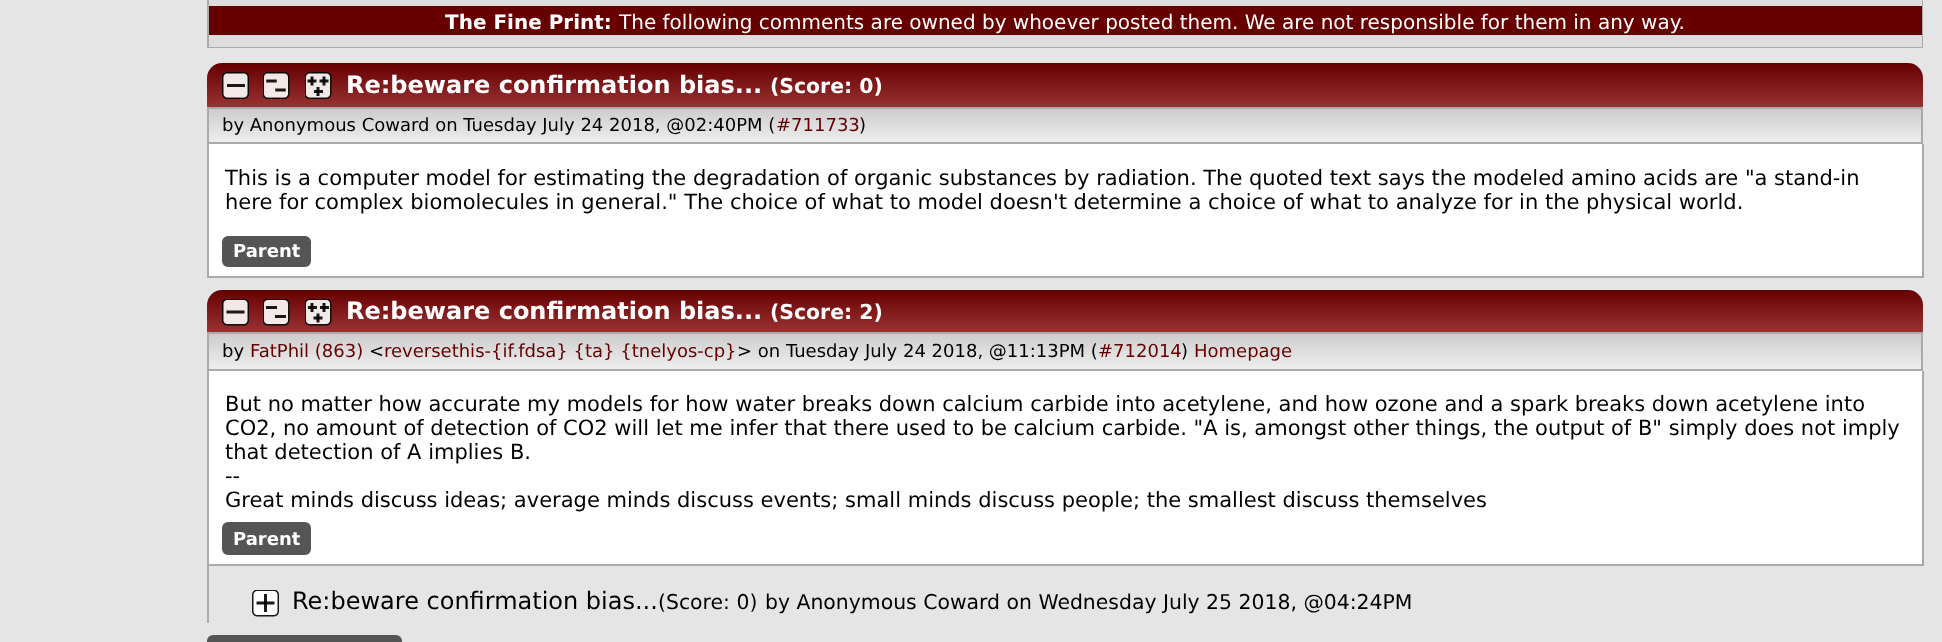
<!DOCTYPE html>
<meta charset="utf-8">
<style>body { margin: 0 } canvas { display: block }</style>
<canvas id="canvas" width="1942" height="642"></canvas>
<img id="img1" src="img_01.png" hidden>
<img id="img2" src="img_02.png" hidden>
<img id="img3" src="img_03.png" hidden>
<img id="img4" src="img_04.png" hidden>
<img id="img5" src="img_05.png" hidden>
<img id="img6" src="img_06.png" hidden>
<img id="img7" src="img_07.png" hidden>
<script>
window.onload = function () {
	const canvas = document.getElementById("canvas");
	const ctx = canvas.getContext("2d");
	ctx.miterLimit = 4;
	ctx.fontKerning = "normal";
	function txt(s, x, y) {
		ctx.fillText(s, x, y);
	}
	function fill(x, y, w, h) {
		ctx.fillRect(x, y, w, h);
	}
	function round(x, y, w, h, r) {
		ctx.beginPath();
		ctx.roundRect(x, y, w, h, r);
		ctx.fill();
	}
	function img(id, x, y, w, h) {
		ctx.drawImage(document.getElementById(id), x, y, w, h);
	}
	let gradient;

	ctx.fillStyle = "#E5E5E5";
	fill(0, 0, 1942, 642);
	ctx.strokeStyle = "#AAAAAA";
	ctx.lineWidth = 2;
	ctx.strokeRect(208, -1, 1714, 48);
	ctx.fillStyle = "#DDDDDD";
	fill(209, 0, 1713, 47);
	ctx.fillStyle = "#660000";
	fill(209, 6, 1713, 29);
	gradient = ctx.createLinearGradient(1065, 63, 1065, 107);
	gradient.addColorStop(0, "#660000");
	gradient.addColorStop(1, "#993333");
	ctx.fillStyle = gradient;
	ctx.beginPath();
	ctx.roundRect(207, 63, 1716, 44, [15, 15, 0, 0]);
	ctx.fill();
	img("img1", 222, 72, 27, 27);
	img("img2", 263, 72, 27, 27);
	img("img3", 305, 72, 27, 27);
	gradient = ctx.createLinearGradient(1065, 108, 1065, 143);
	gradient.addColorStop(0, "#CCCCCC");
	gradient.addColorStop(1, "#EEEEEE");
	ctx.fillStyle = gradient;
	fill(209, 109, 1712, 33);
	ctx.strokeRect(208, 108, 1714, 35);
	ctx.fillStyle = "#FFFFFF";
	fill(209, 144, 1713, 132);
	ctx.fillStyle = "#AAAAAA";
	fill(1922, 144, 2, 134);
	fill(207, 144, 2, 83);
	fill(207, 276, 1716, 2);
	fill(207, 227, 2, 51);
	ctx.fillStyle = "#555555";
	round(222, 236, 89, 31, 6);
	gradient = ctx.createLinearGradient(1065, 289, 1065, 332);
	gradient.addColorStop(0, "#660000");
	gradient.addColorStop(1, "#993333");
	ctx.fillStyle = gradient;
	ctx.beginPath();
	ctx.roundRect(207, 290, 1716, 42, [15, 15, 0, 0]);
	ctx.fill();
	img("img4", 222, 299, 27, 27);
	img("img5", 263, 299, 27, 27);
	img("img6", 305, 299, 27, 27);
	gradient = ctx.createLinearGradient(1065, 333, 1065, 369);
	gradient.addColorStop(0, "#CCCCCC");
	gradient.addColorStop(1, "#EEEEEE");
	ctx.fillStyle = gradient;
	fill(209, 334, 1712, 35);
	ctx.strokeRect(208, 333, 1714, 37);
	ctx.fillStyle = "#FFFFFF";
	fill(209, 371, 1713, 193);
	ctx.fillStyle = "#AAAAAA";
	fill(1922, 371, 2, 195);
	fill(207, 371, 2, 142);
	fill(207, 564, 1716, 2);
	fill(207, 513, 2, 110);
	ctx.fillStyle = "#555555";
	round(222, 522, 89, 33, 6);
	img("img7", 252, 590, 27, 27);
	round(207, 635, 195, 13, 6);
	ctx.font = "bold 20px DejaVu Sans";
	ctx.fillStyle = "#FFFFFF";
	txt("The Fine Print:", 445, 29);
	ctx.font = "20px DejaVu Sans";
	txt("The following comments are owned by whoever posted them. We are not responsible for them in any way.", 619, 29);
	ctx.font = "bold 24px DejaVu Sans";
	txt("Re:beware confirmation bias...", 346, 93);
	ctx.font = "bold 20.4px DejaVu Sans";
	txt("(Score: 0)", 770, 93);
	ctx.font = "18px DejaVu Sans";
	ctx.fillStyle = "#000000";
	txt("by Anonymous Coward on Tuesday July 24 2018, @02:40PM (", 222, 131);
	ctx.fillStyle = "#660000";
	txt("#711733", 776, 131);
	ctx.fillStyle = "#000000";
	txt(")", 859, 131);
	ctx.font = "21px DejaVu Sans";
	txt("This is a computer model for estimating the degradation of organic substances by radiation. The quoted text says the modeled amino acids are \"a stand-in", 225, 185);
	txt("here for complex biomolecules in general.\" The choice of what to model doesn't determine a choice of what to analyze for in the physical world.", 225, 209);
	ctx.font = "bold 18px DejaVu Sans";
	ctx.fillStyle = "#FFFFFF";
	txt("Parent", 233, 257);
	ctx.font = "bold 24px DejaVu Sans";
	txt("Re:beware confirmation bias...", 346, 319);
	ctx.font = "bold 20.4px DejaVu Sans";
	txt("(Score: 2)", 770, 319);
	ctx.font = "18px DejaVu Sans";
	ctx.fillStyle = "#000000";
	txt("by", 222, 357);
	ctx.fillStyle = "#660000";
	txt("FatPhil (863)", 250, 357);
	ctx.fillStyle = "#000000";
	txt("<", 369, 357);
	ctx.fillStyle = "#660000";
	txt("reversethis-{if.fdsa} {ta} {tnelyos-cp}", 384, 357);
	ctx.fillStyle = "#000000";
	txt("> on Tuesday July 24 2018, @11:13PM (", 737, 357);
	ctx.fillStyle = "#660000";
	txt("#712014", 1098, 357);
	ctx.fillStyle = "#000000";
	txt(")", 1181, 357);
	ctx.fillStyle = "#660000";
	txt("Homepage", 1194, 357);
	ctx.font = "21px DejaVu Sans";
	ctx.fillStyle = "#000000";
	txt("But no matter how accurate my models for how water breaks down calcium carbide into acetylene, and how ozone and a spark breaks down acetylene into", 225, 411);
	txt("CO2, no amount of detection of CO2 will let me infer that there used to be calcium carbide. \"A is, amongst other things, the output of B\" simply does not imply", 225, 435);
	txt("that detection of A implies B.", 225, 459);
	txt("--", 225, 483);
	txt("Great minds discuss ideas; average minds discuss events; small minds discuss people; the smallest discuss themselves", 225, 507);
	ctx.font = "bold 18px DejaVu Sans";
	ctx.fillStyle = "#FFFFFF";
	txt("Parent", 233, 545);
	ctx.font = "24px DejaVu Sans";
	ctx.fillStyle = "#000000";
	txt("Re:beware confirmation bias...", 292, 609);
	ctx.font = "20.4px DejaVu Sans";
	txt("(Score: 0)", 658, 609);
	txt("by Anonymous Coward on Wednesday July 25 2018, @04:24PM", 765, 609);
};
</script>
